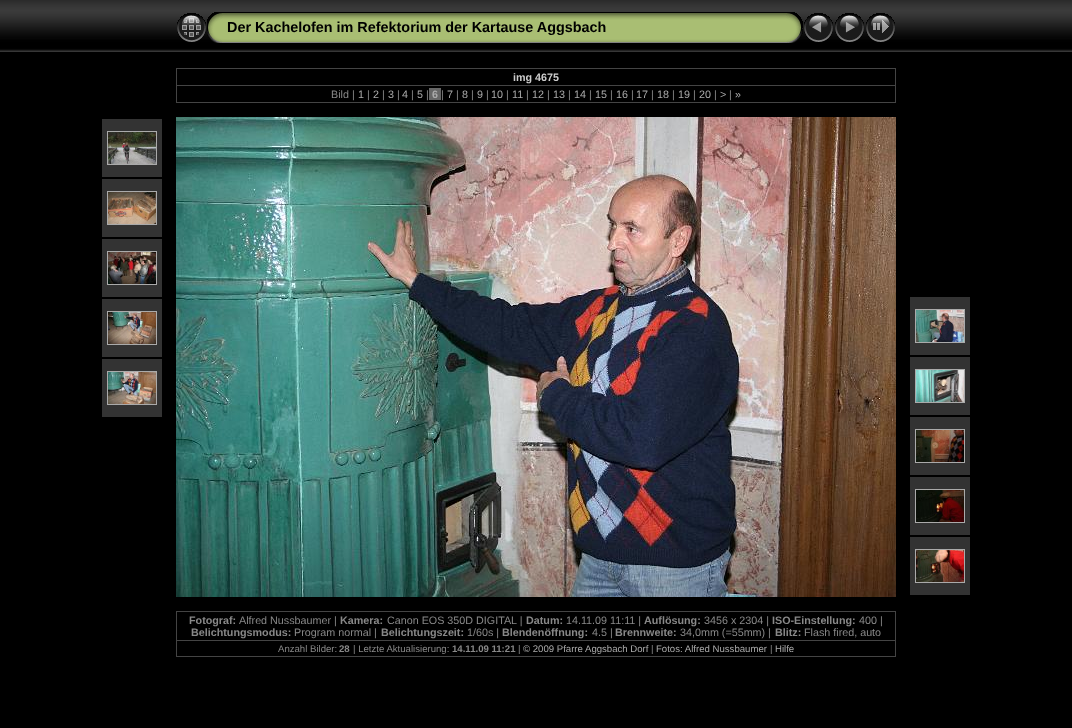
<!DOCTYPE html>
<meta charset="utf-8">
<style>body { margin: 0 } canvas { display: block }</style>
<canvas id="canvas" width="1072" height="728"></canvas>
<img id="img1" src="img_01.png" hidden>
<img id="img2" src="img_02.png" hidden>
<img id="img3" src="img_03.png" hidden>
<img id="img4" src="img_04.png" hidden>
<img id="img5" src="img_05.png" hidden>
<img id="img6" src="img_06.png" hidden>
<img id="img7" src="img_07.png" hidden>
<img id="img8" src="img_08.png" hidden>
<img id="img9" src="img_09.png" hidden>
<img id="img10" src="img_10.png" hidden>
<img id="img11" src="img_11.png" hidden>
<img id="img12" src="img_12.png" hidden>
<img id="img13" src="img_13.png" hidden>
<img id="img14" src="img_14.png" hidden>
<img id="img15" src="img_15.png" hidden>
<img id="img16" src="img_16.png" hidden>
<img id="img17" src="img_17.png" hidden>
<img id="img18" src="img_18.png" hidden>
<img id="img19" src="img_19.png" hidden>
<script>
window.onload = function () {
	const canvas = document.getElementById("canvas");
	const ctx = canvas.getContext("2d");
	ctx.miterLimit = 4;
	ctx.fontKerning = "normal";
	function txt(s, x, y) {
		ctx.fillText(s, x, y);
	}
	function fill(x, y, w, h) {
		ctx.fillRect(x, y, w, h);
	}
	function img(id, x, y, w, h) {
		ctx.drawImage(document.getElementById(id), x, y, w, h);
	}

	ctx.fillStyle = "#000000";
	fill(0, 0, 1072, 728);
	img("img1", 0, 0, 1072, 52);
	img("img2", 177, 13, 29, 29);
	img("img3", 207, 12, 20, 31);
	img("img4", 227, 12, 556, 31);
	img("img5", 783, 12, 20, 31);
	img("img6", 804, 13, 29, 29);
	img("img7", 835, 13, 29, 29);
	img("img8", 866, 13, 29, 29);
	ctx.fillStyle = "#444444";
	fill(176, 68, 720, 1);
	fill(895, 68, 1, 35);
	fill(176, 102, 720, 1);
	fill(176, 68, 1, 35);
	fill(176, 85, 720, 1);
	ctx.fillStyle = "#666666";
	fill(429, 88, 12, 12);
	ctx.fillStyle = "#333333";
	fill(102, 119, 60, 58);
	ctx.strokeStyle = "#AAAAAA";
	ctx.strokeRect(107.5, 131.5, 49, 33);
	img("img9", 108, 132, 48, 32);
	fill(102, 179, 60, 58);
	ctx.strokeRect(107.5, 191.5, 49, 33);
	img("img10", 108, 192, 48, 32);
	fill(102, 239, 60, 58);
	ctx.strokeRect(107.5, 251.5, 49, 33);
	img("img11", 108, 252, 48, 32);
	fill(102, 299, 60, 58);
	ctx.strokeRect(107.5, 311.5, 49, 33);
	img("img12", 108, 312, 48, 32);
	fill(102, 359, 60, 58);
	ctx.strokeRect(107.5, 371.5, 49, 33);
	img("img13", 108, 372, 48, 32);
	img("img14", 176, 117, 720, 480);
	fill(910, 297, 60, 58);
	ctx.strokeRect(915.5, 309.5, 49, 33);
	img("img15", 916, 310, 48, 32);
	fill(910, 357, 60, 58);
	ctx.strokeRect(915.5, 369.5, 49, 33);
	img("img16", 916, 370, 48, 32);
	fill(910, 417, 60, 58);
	ctx.strokeRect(915.5, 429.5, 49, 33);
	img("img17", 916, 430, 48, 32);
	fill(910, 477, 60, 58);
	ctx.strokeRect(915.5, 489.5, 49, 33);
	img("img18", 916, 490, 48, 32);
	fill(910, 537, 60, 58);
	ctx.strokeRect(915.5, 549.5, 49, 33);
	img("img19", 916, 550, 48, 32);
	ctx.fillStyle = "#444444";
	fill(176, 611, 720, 1);
	fill(895, 611, 1, 46);
	fill(176, 656, 720, 1);
	fill(176, 611, 1, 46);
	fill(176, 640, 720, 1);
	ctx.font = "bold 14.4px Liberation Sans";
	ctx.fillStyle = "#000000";
	txt("Der Kachelofen im Refektorium der Kartause Aggsbach", 227, 32);
	ctx.font = "bold 10.75px Liberation Sans";
	ctx.fillStyle = "#CCCCCC";
	txt("img 4675", 513, 81);
	ctx.font = "10.75px Liberation Sans";
	ctx.fillStyle = "#888888";
	txt("Bild |", 331, 98);
	ctx.fillStyle = "#AAAAAA";
	txt("1", 358, 98);
	ctx.fillStyle = "#888888";
	txt("|", 367, 98);
	ctx.fillStyle = "#AAAAAA";
	txt("2", 373, 98);
	ctx.fillStyle = "#888888";
	txt("|", 382, 98);
	ctx.fillStyle = "#AAAAAA";
	txt("3", 388, 98);
	ctx.fillStyle = "#888888";
	txt("|", 397, 98);
	ctx.fillStyle = "#AAAAAA";
	txt("4", 402, 98);
	ctx.fillStyle = "#888888";
	txt("|", 411, 98);
	ctx.fillStyle = "#AAAAAA";
	txt("5", 417, 98);
	ctx.fillStyle = "#888888";
	txt("|", 426, 98);
	ctx.font = "bold 10.75px Liberation Sans";
	ctx.fillStyle = "#AAAAAA";
	txt("6", 432, 98);
	ctx.font = "10.75px Liberation Sans";
	ctx.fillStyle = "#888888";
	txt("|", 441, 98);
	ctx.fillStyle = "#AAAAAA";
	txt("7", 447, 98);
	ctx.fillStyle = "#888888";
	txt("|", 456, 98);
	ctx.fillStyle = "#AAAAAA";
	txt("8", 462, 98);
	ctx.fillStyle = "#888888";
	txt("|", 471, 98);
	ctx.fillStyle = "#AAAAAA";
	txt("9", 477, 98);
	ctx.fillStyle = "#888888";
	txt("|", 486, 98);
	ctx.fillStyle = "#AAAAAA";
	txt("10", 491, 98);
	ctx.fillStyle = "#888888";
	txt("|", 506, 98);
	ctx.fillStyle = "#AAAAAA";
	txt("11", 512, 98);
	ctx.fillStyle = "#888888";
	txt("|", 526, 98);
	ctx.fillStyle = "#AAAAAA";
	txt("12", 532, 98);
	ctx.fillStyle = "#888888";
	txt("|", 547, 98);
	ctx.fillStyle = "#AAAAAA";
	txt("13", 553, 98);
	ctx.fillStyle = "#888888";
	txt("|", 568, 98);
	ctx.fillStyle = "#AAAAAA";
	txt("14", 574, 98);
	ctx.fillStyle = "#888888";
	txt("|", 589, 98);
	ctx.fillStyle = "#AAAAAA";
	txt("15", 595, 98);
	ctx.fillStyle = "#888888";
	txt("|", 610, 98);
	ctx.fillStyle = "#AAAAAA";
	txt("16", 616, 98);
	ctx.fillStyle = "#888888";
	txt("|", 631, 98);
	ctx.fillStyle = "#AAAAAA";
	txt("17", 636, 98);
	ctx.fillStyle = "#888888";
	txt("|", 651, 98);
	ctx.fillStyle = "#AAAAAA";
	txt("18", 657, 98);
	ctx.fillStyle = "#888888";
	txt("|", 672, 98);
	ctx.fillStyle = "#AAAAAA";
	txt("19", 678, 98);
	ctx.fillStyle = "#888888";
	txt("|", 693, 98);
	ctx.fillStyle = "#AAAAAA";
	txt("20", 699, 98);
	ctx.fillStyle = "#888888";
	txt("|", 714, 98);
	ctx.fillStyle = "#AAAAAA";
	txt(">", 720, 98);
	ctx.fillStyle = "#888888";
	txt("|", 729, 98);
	ctx.fillStyle = "#AAAAAA";
	txt("»", 735, 98);
	ctx.font = "bold 10.75px Liberation Sans";
	ctx.fillStyle = "#888888";
	txt("Fotograf:", 189, 624);
	ctx.font = "10.75px Liberation Sans";
	txt("Alfred Nussbaumer |", 239, 624);
	ctx.font = "bold 10.75px Liberation Sans";
	txt("Kamera:", 340, 624);
	ctx.font = "10.75px Liberation Sans";
	txt("Canon EOS 350D DIGITAL |", 387, 624);
	ctx.font = "bold 10.75px Liberation Sans";
	txt("Datum:", 526, 624);
	ctx.font = "10.75px Liberation Sans";
	txt("14.11.09 11:11 |", 566, 624);
	ctx.font = "bold 10.75px Liberation Sans";
	txt("Auflösung:", 644, 624);
	ctx.font = "10.75px Liberation Sans";
	txt("3456 x 2304 |", 704, 624);
	ctx.font = "bold 10.75px Liberation Sans";
	txt("ISO-Einstellung:", 772, 624);
	ctx.font = "10.75px Liberation Sans";
	txt("400 |", 859, 624);
	ctx.font = "bold 10.75px Liberation Sans";
	txt("Belichtungsmodus:", 191, 636);
	ctx.font = "10.75px Liberation Sans";
	txt("Program normal |", 294, 636);
	ctx.font = "bold 10.75px Liberation Sans";
	txt("Belichtungszeit:", 381, 636);
	ctx.font = "10.75px Liberation Sans";
	txt("1/60s |", 467, 636);
	ctx.font = "bold 10.75px Liberation Sans";
	txt("Blendenöffnung:", 502, 636);
	ctx.font = "10.75px Liberation Sans";
	txt("4.5 |", 592, 636);
	ctx.font = "bold 10.75px Liberation Sans";
	txt("Brennweite:", 615, 636);
	ctx.font = "10.75px Liberation Sans";
	txt("34,0mm (=55mm) |", 680, 636);
	ctx.font = "bold 10.75px Liberation Sans";
	txt("Blitz:", 775, 636);
	ctx.font = "10.75px Liberation Sans";
	txt("Flash fired, auto", 804, 636);
	ctx.font = "9.6px Liberation Sans";
	txt("Anzahl Bilder:", 278, 652);
	ctx.font = "bold 9.6px Liberation Sans";
	txt("28", 339, 652);
	ctx.font = "9.6px Liberation Sans";
	txt("| Letzte Aktualisierung:", 353, 652);
	ctx.font = "bold 9.6px Liberation Sans";
	txt("14.11.09 11:21", 452, 652);
	ctx.font = "9.6px Liberation Sans";
	txt("|", 518, 652);
	ctx.fillStyle = "#AAAAAA";
	txt("© 2009 Pfarre Aggsbach Dorf", 523, 652);
	ctx.fillStyle = "#888888";
	txt("|", 651, 652);
	ctx.fillStyle = "#AAAAAA";
	txt("Fotos: Alfred Nussbaumer", 656, 652);
	ctx.fillStyle = "#888888";
	txt("|", 770, 652);
	ctx.fillStyle = "#AAAAAA";
	txt("Hilfe", 775, 652);
};
</script>
